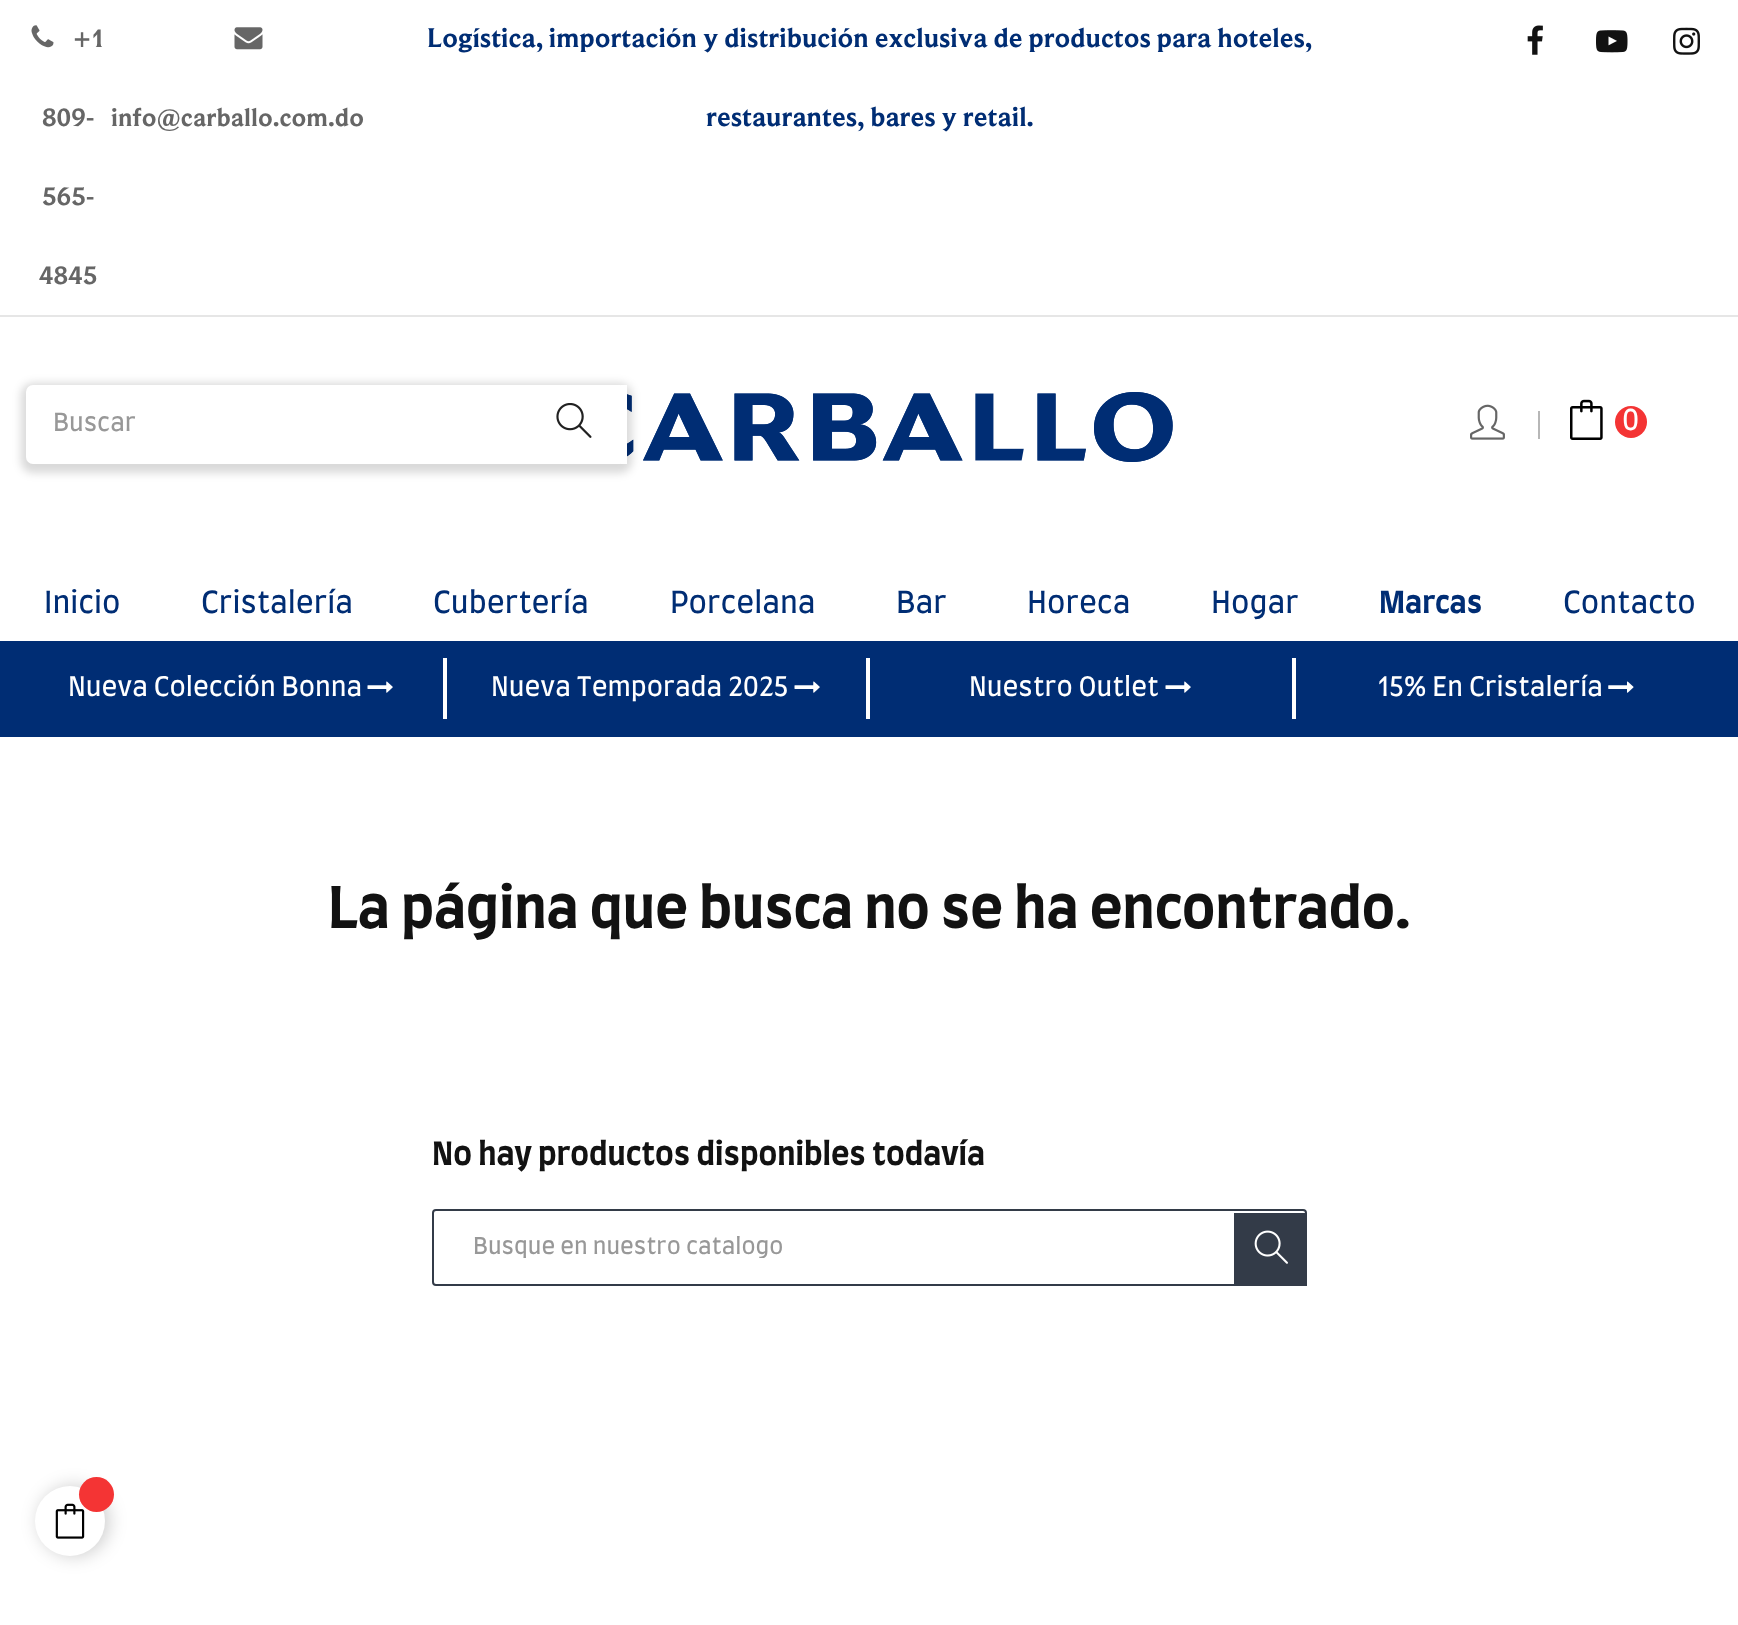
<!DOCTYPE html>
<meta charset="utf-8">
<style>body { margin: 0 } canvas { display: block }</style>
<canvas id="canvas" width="1738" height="1625"></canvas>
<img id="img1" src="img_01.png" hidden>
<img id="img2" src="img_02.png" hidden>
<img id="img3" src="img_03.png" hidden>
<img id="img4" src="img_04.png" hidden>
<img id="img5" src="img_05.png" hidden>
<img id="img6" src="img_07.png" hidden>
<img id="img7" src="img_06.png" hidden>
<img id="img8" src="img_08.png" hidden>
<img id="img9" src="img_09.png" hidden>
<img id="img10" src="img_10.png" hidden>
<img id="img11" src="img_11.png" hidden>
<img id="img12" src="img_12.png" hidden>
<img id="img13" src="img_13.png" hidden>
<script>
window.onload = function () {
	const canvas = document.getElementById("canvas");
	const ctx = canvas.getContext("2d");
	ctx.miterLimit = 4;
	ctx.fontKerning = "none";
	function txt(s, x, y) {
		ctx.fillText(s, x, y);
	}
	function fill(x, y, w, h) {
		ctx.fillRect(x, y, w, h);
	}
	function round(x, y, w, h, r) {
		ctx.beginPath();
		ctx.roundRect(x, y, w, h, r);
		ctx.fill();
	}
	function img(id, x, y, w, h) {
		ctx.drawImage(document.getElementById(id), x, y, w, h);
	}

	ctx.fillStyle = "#FFFFFF";
	fill(0, 0, 1738, 1625);
	ctx.fillStyle = "#E6E6E6";
	fill(0, 315, 1738, 2);
	img("img1", 31, 25, 23, 23);
	img("img2", 234, 27, 29, 23);
	img("img3", 1527, 25, 16, 30);
	img("img4", 1596, 30, 32, 23);
	img("img5", 1673, 27, 27, 28);
	img("img6", 627, 392, 546, 70);
	ctx.fillStyle = "rgba(0, 0, 0, 0.15)";
	ctx.filter = "blur(4.5px)";
	ctx.beginPath();
	ctx.roundRect(21, 383, 611, 90, 12);
	ctx.fill();
	ctx.filter = "none";
	ctx.fillStyle = "#FFFFFF";
	round(26, 385, 601, 79, 7);
	fill(621, 385, 6, 79);
	img("img7", 556, 403, 36, 35);
	img("img8", 1470, 404, 35, 36);
	ctx.fillStyle = "#B7B7B7";
	fill(1538, 411, 2, 28);
	img("img9", 1570, 399, 33, 41);
	ctx.fillStyle = "#F43434";
	ctx.beginPath();
	ctx.arc(1631, 422, 16, 0, Math.PI * 2);
	ctx.fill();
	ctx.fillStyle = "#002D74";
	fill(0, 641, 1738, 96);
	ctx.fillStyle = "#FFFFFF";
	fill(443, 658, 4, 61);
	img("img10", 367, 681, 26, 12);
	fill(866, 658, 4, 61);
	img("img10", 794, 681, 26, 12);
	fill(1292, 658, 4, 61);
	img("img10", 1165, 681, 26, 12);
	img("img11", 1608, 681, 26, 12);
	ctx.beginPath();
	ctx.roundRect(433, 1210, 873, 75, 3);
	ctx.strokeStyle = "#333B48";
	ctx.lineWidth = 2;
	ctx.stroke();
	ctx.fillStyle = "#333B48";
	fill(1234, 1213, 73, 73);
	img("img12", 1254, 1230, 34, 34);
	ctx.fillStyle = "rgba(0, 0, 0, 0.2)";
	ctx.filter = "blur(9px)";
	ctx.beginPath();
	ctx.roundRect(39, 1486, 70, 70, 35);
	ctx.fill();
	ctx.filter = "none";
	ctx.fillStyle = "#FFFFFF";
	ctx.beginPath();
	ctx.arc(70, 1521, 35, 0, Math.PI * 2);
	ctx.fill();
	img("img13", 55, 1503, 30, 36);
	ctx.fillStyle = "#F43434";
	ctx.beginPath();
	ctx.arc(96.5, 1494.5, 17.5, 0, Math.PI * 2);
	ctx.fill();
	ctx.font = "bold 26.25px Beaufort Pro";
	ctx.fillStyle = "#666666";
	txt("+1", 73, 47);
	txt("809-", 42, 126);
	txt("565-", 42, 205);
	txt("4845", 39, 284);
	txt("info@carballo.com.do", 111, 126);
	ctx.font = "bold 28px Beaufort Pro";
	ctx.fillStyle = "#002D74";
	txt("Logística, importación y distribución exclusiva de productos para hoteles,", 427, 47);
	txt("restaurantes, bares y retail.", 706, 126);
	ctx.font = "24.5px 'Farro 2'";
	ctx.fillStyle = "#989898";
	txt("Buscar", 53, 431);
	ctx.font = "28px 'Farro 2'";
	ctx.fillStyle = "#FFFFFF";
	txt("0", 1622, 430);
	ctx.font = "29.75px Farro";
	ctx.fillStyle = "#002D74";
	txt("Inicio", 44, 613);
	txt("Cristalería", 201, 613);
	txt("Cubertería", 433, 613);
	txt("Porcelana", 670, 613);
	txt("Bar", 896, 613);
	txt("Horeca", 1027, 613);
	txt("Hogar", 1211, 613);
	ctx.font = "bold 29.75px Farro";
	txt("Marcas", 1379, 613);
	ctx.font = "29.75px Farro";
	txt("Contacto", 1563, 613);
	ctx.font = "26.25px 'Farro 2'";
	ctx.fillStyle = "#FFFFFF";
	txt("Nueva Colección Bonna", 68, 696);
	txt("Nueva Temporada 2025", 491, 696);
	txt("Nuestro Outlet", 969, 696);
	txt("15% En Cristalería", 1378, 696);
	ctx.font = "bold 56px Farro";
	ctx.fillStyle = "#121212";
	txt("La página que busca no se ha encontrado.", 328, 928);
	ctx.font = "bold 31.5px Farro";
	txt("No hay productos disponibles todavía", 432, 1165);
	ctx.save();
	ctx.beginPath();
	ctx.rect(455, 1236, 763, 22);
	ctx.clip();
	ctx.font = "22.75px 'Farro 2'";
	ctx.fillStyle = "#989898";
	txt("Busque en nuestro catalogo", 473, 1254);
	ctx.restore();
};
</script>
